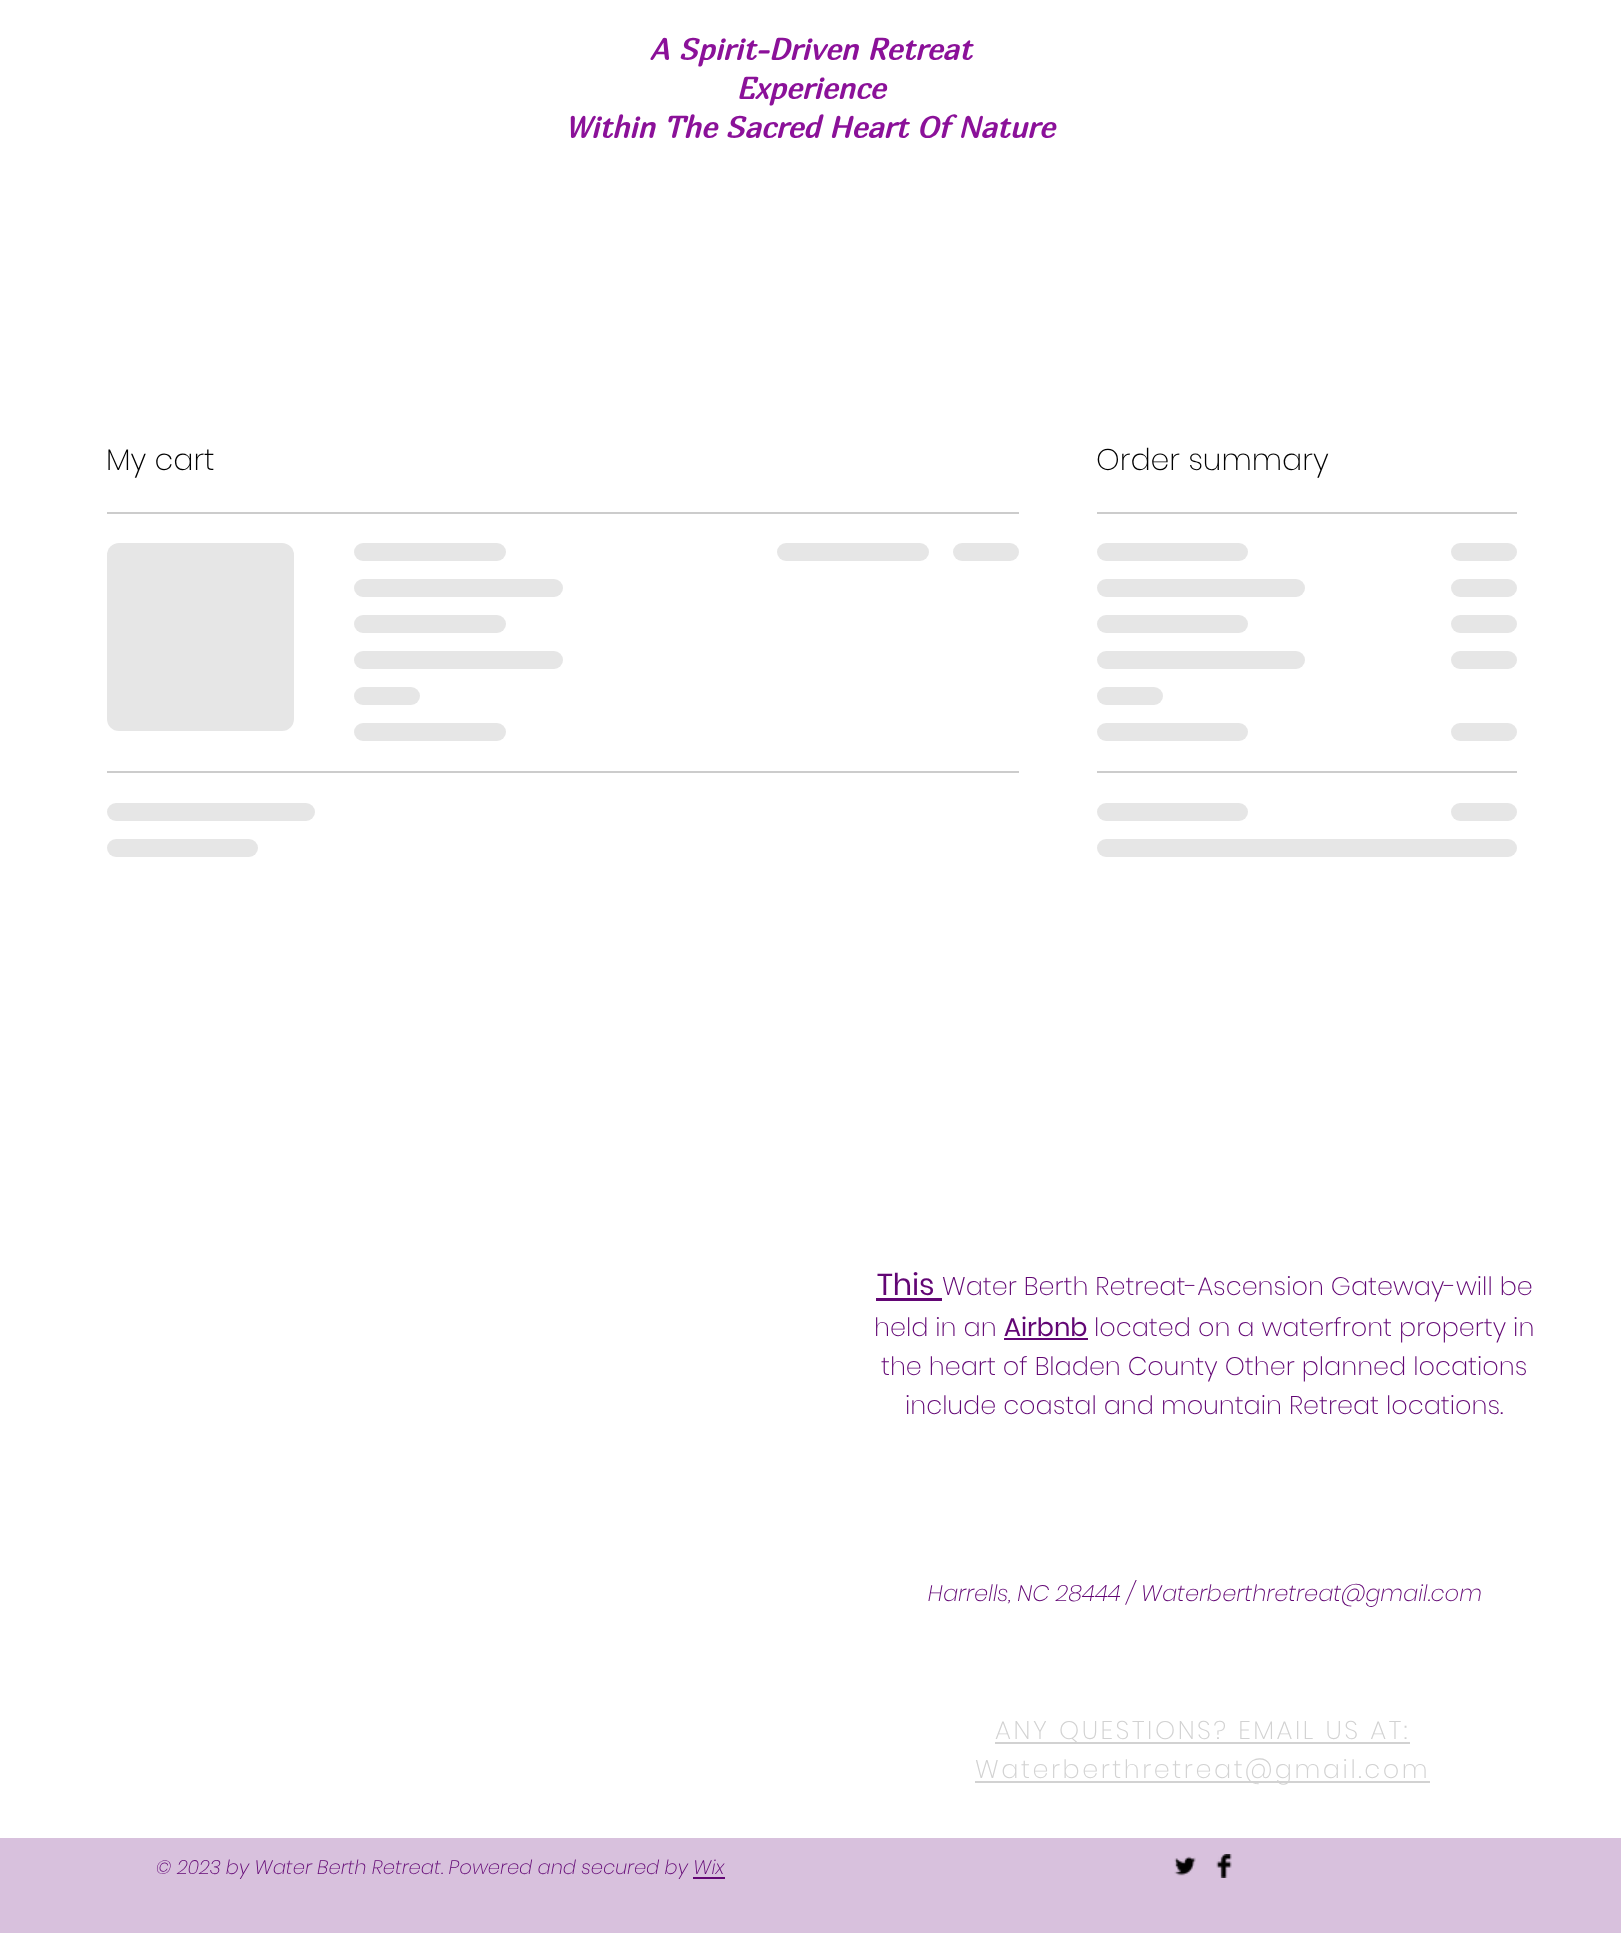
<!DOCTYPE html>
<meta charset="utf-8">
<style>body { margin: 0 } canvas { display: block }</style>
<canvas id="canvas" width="1621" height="1933"></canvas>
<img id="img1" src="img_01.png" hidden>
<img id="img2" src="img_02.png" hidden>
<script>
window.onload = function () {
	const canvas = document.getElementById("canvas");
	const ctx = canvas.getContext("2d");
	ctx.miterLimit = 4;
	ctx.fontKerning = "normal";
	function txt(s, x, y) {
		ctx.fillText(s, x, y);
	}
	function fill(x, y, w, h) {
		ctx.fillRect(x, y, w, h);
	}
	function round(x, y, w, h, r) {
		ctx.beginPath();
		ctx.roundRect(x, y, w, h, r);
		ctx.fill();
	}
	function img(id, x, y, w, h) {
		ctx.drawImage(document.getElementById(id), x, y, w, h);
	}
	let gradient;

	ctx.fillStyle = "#FFFFFF";
	fill(0, 0, 1621, 1933);
	ctx.fillStyle = "#CCCCCC";
	fill(107, 512, 912, 2);
	gradient = ctx.createLinearGradient(107, 637, 857, 637);
	gradient.addColorStop(0.25, "#E6E6E6");
	gradient.addColorStop(0.37, "#CCCCCC");
	gradient.addColorStop(0.63, "#E6E6E6");
	ctx.fillStyle = gradient;
	round(107, 543, 187, 188, 12);
	gradient = ctx.createLinearGradient(354, 552, 960, 552);
	gradient.addColorStop(0.25, "#E6E6E6");
	gradient.addColorStop(0.37, "#CCCCCC");
	gradient.addColorStop(0.63, "#E6E6E6");
	ctx.fillStyle = gradient;
	round(354, 543, 152, 18, 9);
	gradient = ctx.createLinearGradient(354, 588, 1188, 588);
	gradient.addColorStop(0.25, "#E6E6E6");
	gradient.addColorStop(0.37, "#CCCCCC");
	gradient.addColorStop(0.63, "#E6E6E6");
	ctx.fillStyle = gradient;
	round(354, 579, 209, 18, 9);
	gradient = ctx.createLinearGradient(354, 624, 960, 624);
	gradient.addColorStop(0.25, "#E6E6E6");
	gradient.addColorStop(0.37, "#CCCCCC");
	gradient.addColorStop(0.63, "#E6E6E6");
	ctx.fillStyle = gradient;
	round(354, 615, 152, 18, 9);
	gradient = ctx.createLinearGradient(354, 660, 1188, 660);
	gradient.addColorStop(0.25, "#E6E6E6");
	gradient.addColorStop(0.37, "#CCCCCC");
	gradient.addColorStop(0.63, "#E6E6E6");
	ctx.fillStyle = gradient;
	round(354, 651, 209, 18, 9);
	gradient = ctx.createLinearGradient(354, 696, 618, 696);
	gradient.addColorStop(0.25, "#E6E6E6");
	gradient.addColorStop(0.37, "#CCCCCC");
	gradient.addColorStop(0.63, "#E6E6E6");
	ctx.fillStyle = gradient;
	round(354, 687, 66, 18, 9);
	gradient = ctx.createLinearGradient(354, 732, 960, 732);
	gradient.addColorStop(0.25, "#E6E6E6");
	gradient.addColorStop(0.37, "#CCCCCC");
	gradient.addColorStop(0.63, "#E6E6E6");
	ctx.fillStyle = gradient;
	round(354, 723, 152, 18, 9);
	gradient = ctx.createLinearGradient(777, 552, 1383, 552);
	gradient.addColorStop(0.25, "#E6E6E6");
	gradient.addColorStop(0.37, "#CCCCCC");
	gradient.addColorStop(0.63, "#E6E6E6");
	ctx.fillStyle = gradient;
	round(777, 543, 152, 18, 9);
	gradient = ctx.createLinearGradient(953, 552, 1217, 552);
	gradient.addColorStop(0.25, "#E6E6E6");
	gradient.addColorStop(0.37, "#CCCCCC");
	gradient.addColorStop(0.63, "#E6E6E6");
	ctx.fillStyle = gradient;
	round(953, 543, 66, 18, 9);
	ctx.fillStyle = "#CCCCCC";
	fill(107, 771, 912, 2);
	gradient = ctx.createLinearGradient(107, 812, 941, 812);
	gradient.addColorStop(0.25, "#E6E6E6");
	gradient.addColorStop(0.37, "#CCCCCC");
	gradient.addColorStop(0.63, "#E6E6E6");
	ctx.fillStyle = gradient;
	round(107, 803, 208, 18, 9);
	gradient = ctx.createLinearGradient(107, 848, 713, 848);
	gradient.addColorStop(0.25, "#E6E6E6");
	gradient.addColorStop(0.37, "#CCCCCC");
	gradient.addColorStop(0.63, "#E6E6E6");
	ctx.fillStyle = gradient;
	round(107, 839, 151, 18, 9);
	ctx.fillStyle = "#CCCCCC";
	fill(1097, 512, 420, 2);
	gradient = ctx.createLinearGradient(1097, 552, 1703, 552);
	gradient.addColorStop(0.25, "#E6E6E6");
	gradient.addColorStop(0.37, "#CCCCCC");
	gradient.addColorStop(0.63, "#E6E6E6");
	ctx.fillStyle = gradient;
	round(1097, 543, 151, 18, 9);
	gradient = ctx.createLinearGradient(1451, 552, 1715, 552);
	gradient.addColorStop(0.25, "#E6E6E6");
	gradient.addColorStop(0.37, "#CCCCCC");
	gradient.addColorStop(0.63, "#E6E6E6");
	ctx.fillStyle = gradient;
	round(1451, 543, 66, 18, 9);
	gradient = ctx.createLinearGradient(1097, 588, 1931, 588);
	gradient.addColorStop(0.25, "#E6E6E6");
	gradient.addColorStop(0.37, "#CCCCCC");
	gradient.addColorStop(0.63, "#E6E6E6");
	ctx.fillStyle = gradient;
	round(1097, 579, 208, 18, 9);
	gradient = ctx.createLinearGradient(1451, 588, 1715, 588);
	gradient.addColorStop(0.25, "#E6E6E6");
	gradient.addColorStop(0.37, "#CCCCCC");
	gradient.addColorStop(0.63, "#E6E6E6");
	ctx.fillStyle = gradient;
	round(1451, 579, 66, 18, 9);
	gradient = ctx.createLinearGradient(1097, 624, 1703, 624);
	gradient.addColorStop(0.25, "#E6E6E6");
	gradient.addColorStop(0.37, "#CCCCCC");
	gradient.addColorStop(0.63, "#E6E6E6");
	ctx.fillStyle = gradient;
	round(1097, 615, 151, 18, 9);
	gradient = ctx.createLinearGradient(1451, 624, 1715, 624);
	gradient.addColorStop(0.25, "#E6E6E6");
	gradient.addColorStop(0.37, "#CCCCCC");
	gradient.addColorStop(0.63, "#E6E6E6");
	ctx.fillStyle = gradient;
	round(1451, 615, 66, 18, 9);
	gradient = ctx.createLinearGradient(1097, 660, 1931, 660);
	gradient.addColorStop(0.25, "#E6E6E6");
	gradient.addColorStop(0.37, "#CCCCCC");
	gradient.addColorStop(0.63, "#E6E6E6");
	ctx.fillStyle = gradient;
	round(1097, 651, 208, 18, 9);
	gradient = ctx.createLinearGradient(1451, 660, 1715, 660);
	gradient.addColorStop(0.25, "#E6E6E6");
	gradient.addColorStop(0.37, "#CCCCCC");
	gradient.addColorStop(0.63, "#E6E6E6");
	ctx.fillStyle = gradient;
	round(1451, 651, 66, 18, 9);
	gradient = ctx.createLinearGradient(1097, 696, 1361, 696);
	gradient.addColorStop(0.25, "#E6E6E6");
	gradient.addColorStop(0.37, "#CCCCCC");
	gradient.addColorStop(0.63, "#E6E6E6");
	ctx.fillStyle = gradient;
	round(1097, 687, 66, 18, 9);
	gradient = ctx.createLinearGradient(1097, 732, 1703, 732);
	gradient.addColorStop(0.25, "#E6E6E6");
	gradient.addColorStop(0.37, "#CCCCCC");
	gradient.addColorStop(0.63, "#E6E6E6");
	ctx.fillStyle = gradient;
	round(1097, 723, 151, 18, 9);
	gradient = ctx.createLinearGradient(1451, 732, 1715, 732);
	gradient.addColorStop(0.25, "#E6E6E6");
	gradient.addColorStop(0.37, "#CCCCCC");
	gradient.addColorStop(0.63, "#E6E6E6");
	ctx.fillStyle = gradient;
	round(1451, 723, 66, 18, 9);
	ctx.fillStyle = "#CCCCCC";
	fill(1097, 771, 420, 2);
	gradient = ctx.createLinearGradient(1097, 812, 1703, 812);
	gradient.addColorStop(0.25, "#E6E6E6");
	gradient.addColorStop(0.37, "#CCCCCC");
	gradient.addColorStop(0.63, "#E6E6E6");
	ctx.fillStyle = gradient;
	round(1097, 803, 151, 18, 9);
	gradient = ctx.createLinearGradient(1451, 812, 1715, 812);
	gradient.addColorStop(0.25, "#E6E6E6");
	gradient.addColorStop(0.37, "#CCCCCC");
	gradient.addColorStop(0.63, "#E6E6E6");
	ctx.fillStyle = gradient;
	round(1451, 803, 66, 18, 9);
	gradient = ctx.createLinearGradient(1097, 848, 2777, 848);
	gradient.addColorStop(0.25, "#E6E6E6");
	gradient.addColorStop(0.37, "#CCCCCC");
	gradient.addColorStop(0.63, "#E6E6E6");
	ctx.fillStyle = gradient;
	round(1097, 839, 420, 18, 9);
	ctx.fillStyle = "#620674";
	fill(876, 1298, 66, 3);
	fill(1004, 1338, 84, 2);
	ctx.fillStyle = "#D2D2D2";
	fill(995, 1742, 415, 2);
	fill(975, 1781, 455, 2);
	ctx.fillStyle = "#D8C1DD";
	fill(0, 1838, 1621, 95);
	ctx.fillStyle = "#620674";
	fill(693, 1877, 32, 2);
	img("img1", 1174, 1856, 22, 20);
	img("img2", 1216, 1854, 16, 24);
	ctx.font = "italic bold 30px Marmelad";
	ctx.fillStyle = "#8B1199";
	txt("A Spirit-Driven Retreat", 649, 60);
	txt("Experience", 736, 99);
	txt("Within The Sacred Heart Of Nature", 565, 138);
	ctx.font = "200 30px Poppins";
	ctx.fillStyle = "#000000";
	txt("My cart", 106, 470);
	txt("Order summary", 1096, 470);
	ctx.font = "30px Poppins";
	ctx.fillStyle = "#620674";
	txt("This", 877, 1295);
	ctx.font = "200 25.5px Poppins";
	txt("Water Berth Retreat-Ascension Gateway-will be", 942, 1295);
	txt("held in an", 874, 1336);
	ctx.font = "25.5px Poppins";
	txt("Airbnb", 1004, 1336);
	ctx.font = "200 25.5px Poppins";
	txt("located on a waterfront property in", 1094, 1336);
	txt("the heart of Bladen County Other planned locations", 881, 1375);
	txt("include coastal and mountain Retreat locations.", 905, 1414);
	ctx.font = "italic 200 22.5px Poppins";
	txt("Harrells, NC 28444 / Waterberthretreat@gmail.com", 928, 1601);
	ctx.letterSpacing = "2.55px";
	ctx.font = "200 25.5px Poppins";
	ctx.fillStyle = "#D2D2D2";
	txt("ANY QUESTIONS? EMAIL US AT:", 995, 1739);
	txt("Waterberthretreat@gmail.com", 975, 1778);
	ctx.letterSpacing = "0px";
	ctx.font = "italic 200 19.5px Poppins";
	ctx.fillStyle = "#620674";
	txt("© 2023 by Water Berth Retreat. Powered and secured by Wix", 156, 1874);
};
</script>
